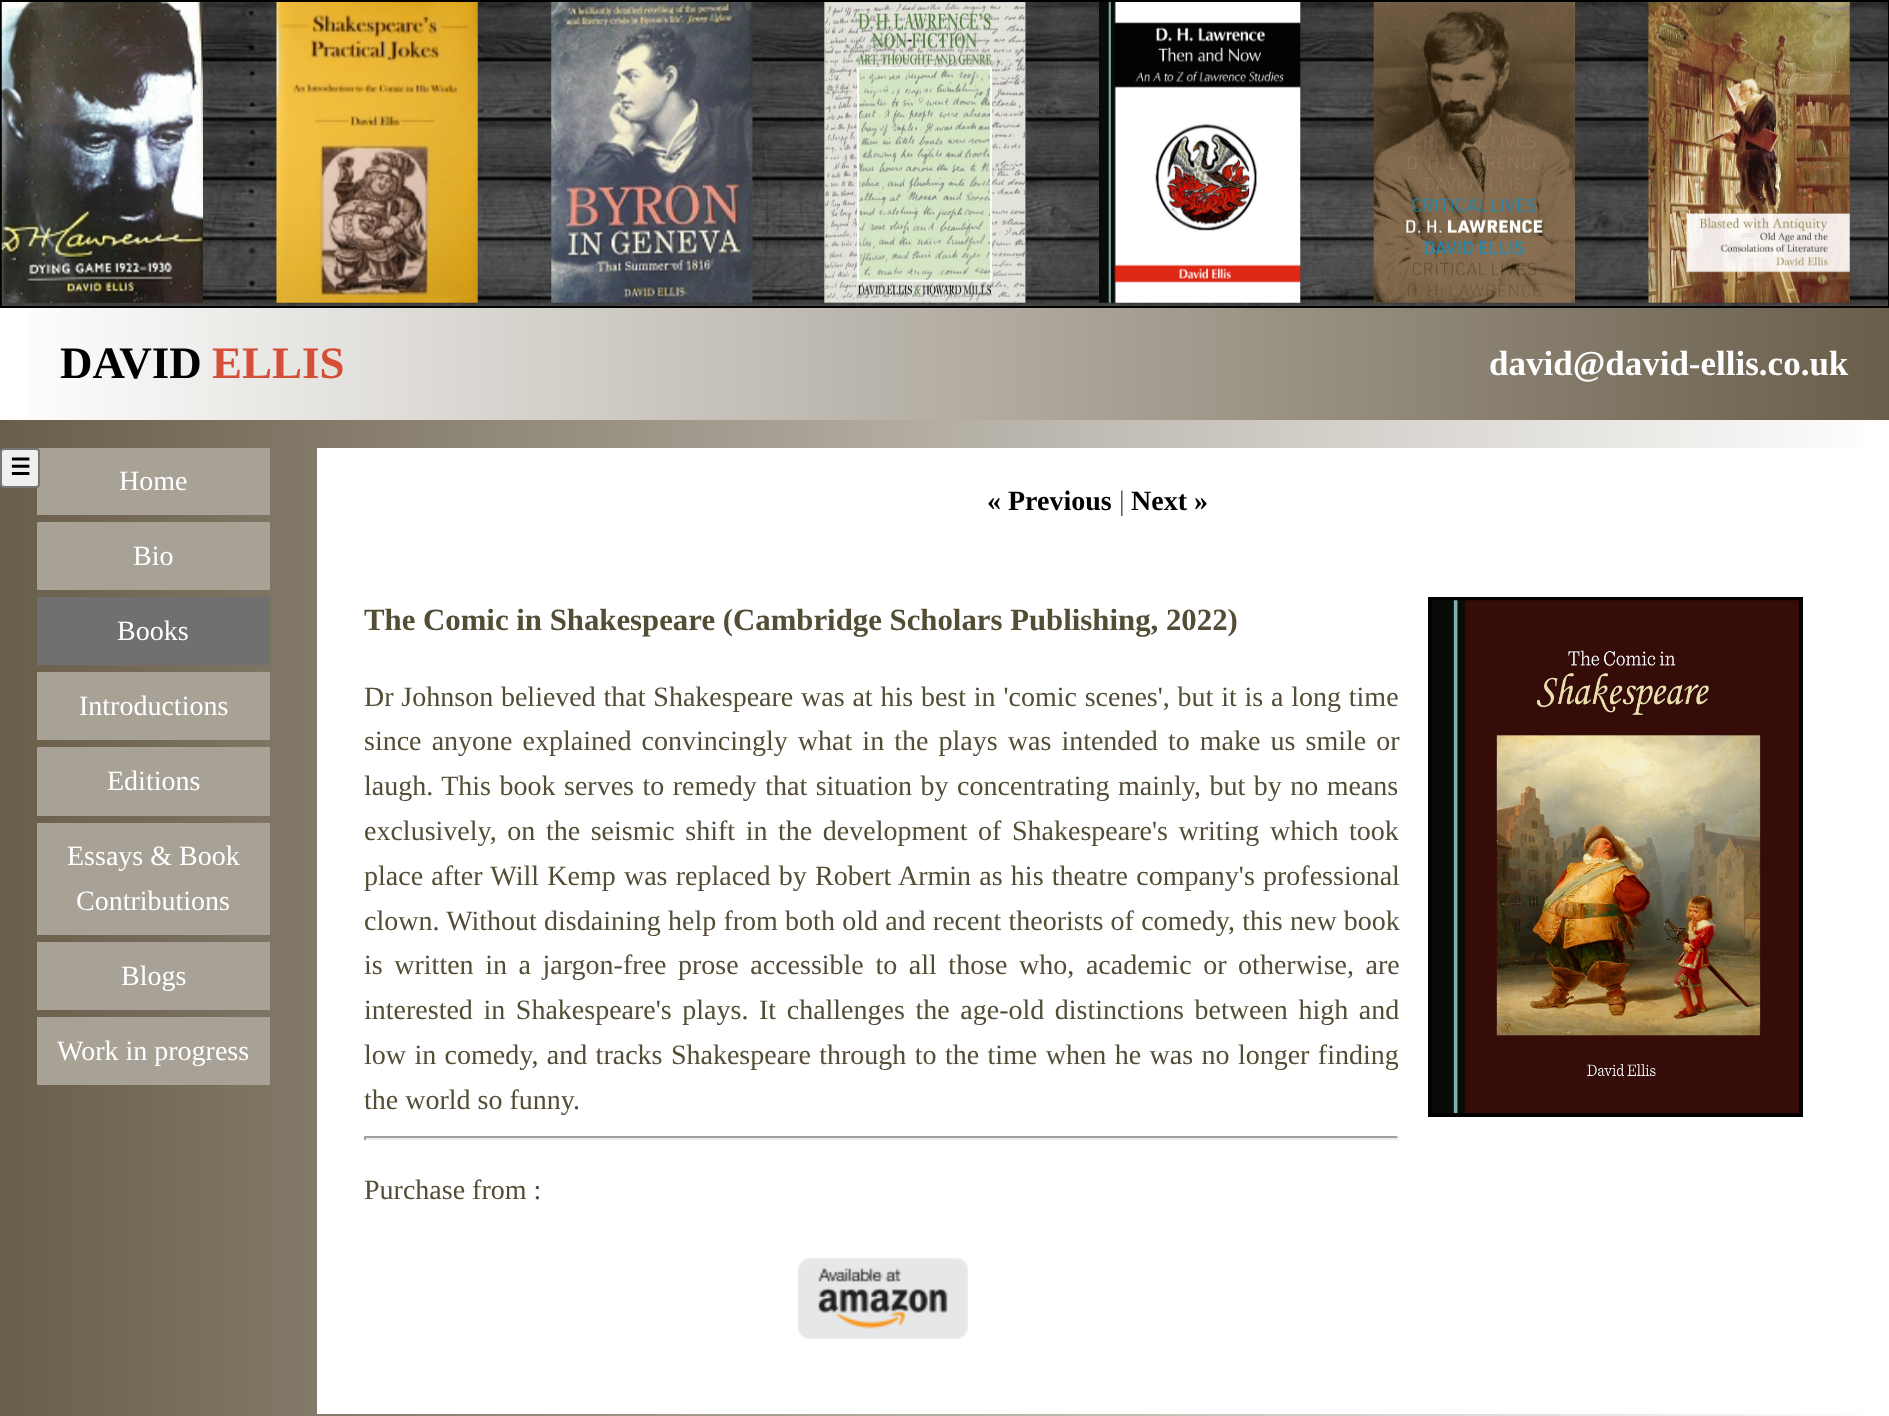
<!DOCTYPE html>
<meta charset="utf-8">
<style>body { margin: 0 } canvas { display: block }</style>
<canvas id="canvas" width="1889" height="1416"></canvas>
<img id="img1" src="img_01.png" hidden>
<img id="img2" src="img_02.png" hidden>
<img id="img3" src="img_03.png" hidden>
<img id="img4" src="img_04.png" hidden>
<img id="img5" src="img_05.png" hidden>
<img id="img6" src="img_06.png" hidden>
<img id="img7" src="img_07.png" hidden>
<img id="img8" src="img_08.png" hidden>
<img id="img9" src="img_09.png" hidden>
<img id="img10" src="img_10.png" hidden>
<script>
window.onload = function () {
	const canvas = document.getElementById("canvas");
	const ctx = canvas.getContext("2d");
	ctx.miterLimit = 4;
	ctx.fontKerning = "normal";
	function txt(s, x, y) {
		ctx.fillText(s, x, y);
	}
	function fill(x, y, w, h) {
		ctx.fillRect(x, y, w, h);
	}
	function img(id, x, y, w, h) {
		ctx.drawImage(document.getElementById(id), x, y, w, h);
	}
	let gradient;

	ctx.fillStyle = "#FFFFFF";
	fill(0, 0, 1889, 1416);
	gradient = ctx.createLinearGradient(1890, 829, 0, 829);
	gradient.addColorStop(0, "#FFFFFF");
	gradient.addColorStop(1, "#695E4A");
	ctx.fillStyle = gradient;
	fill(0, 420, 1864, 996);
	img("img1", 2, 2, 1886, 304);
	ctx.strokeStyle = "#000000";
	ctx.lineWidth = 2;
	ctx.strokeRect(1, 1, 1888, 306);
	img("img2", 1, 2, 202, 301);
	img("img3", 276, 2, 202, 301);
	img("img4", 551, 2, 202, 301);
	img("img5", 824, 2, 202, 301);
	img("img6", 1099, 2, 202, 301);
	img("img7", 1373, 2, 202, 301);
	img("img8", 1648, 2, 202, 301);
	gradient = ctx.createLinearGradient(0, 364, 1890, 364);
	gradient.addColorStop(0, "#FFFFFF");
	gradient.addColorStop(1, "#695E4A");
	ctx.fillStyle = gradient;
	fill(26, 308, 1863, 112);
	ctx.fillStyle = "#A8A196";
	fill(37, 448, 233, 67);
	ctx.fillStyle = "#EFEFEF";
	ctx.beginPath();
	ctx.roundRect(1, 449, 38, 38, 3);
	ctx.fill();
	ctx.strokeStyle = "#767676";
	ctx.stroke();
	ctx.fillStyle = "#A8A196";
	fill(37, 522, 233, 68);
	ctx.fillStyle = "#707070";
	fill(37, 597, 233, 68);
	ctx.fillStyle = "#A8A196";
	fill(37, 672, 233, 68);
	fill(37, 747, 233, 69);
	fill(37, 823, 233, 112);
	fill(37, 942, 233, 68);
	fill(37, 1017, 233, 68);
	ctx.fillStyle = "#FFFFFF";
	fill(317, 448, 1545, 966);
	ctx.strokeStyle = "#000000";
	ctx.lineWidth = 4;
	ctx.strokeRect(1430, 599, 371, 516);
	img("img9", 1431, 600, 368, 513);
	ctx.fillStyle = "#9F9F9F";
	fill(364, 1136, 1034, 2);
	ctx.fillStyle = "#EEEEEE";
	fill(1397, 1136, 2, 4);
	fill(364, 1138, 1034, 2);
	ctx.fillStyle = "#9F9F9F";
	fill(364, 1136, 2, 4);
	img("img10", 797, 1258, 172, 81);
	ctx.font = "bold 45px Liberation Serif";
	ctx.fillStyle = "#000000";
	txt("DAVID", 60, 378);
	ctx.fillStyle = "#D54E38";
	txt("ELLIS", 212, 378);
	ctx.font = "bold 35px Liberation Serif";
	ctx.fillStyle = "#FFFFFF";
	txt("david@david-ellis.co.uk", 1489, 375);
	ctx.font = "bold 23px DejaVu Sans";
	ctx.fillStyle = "#000000";
	txt("☰", 10, 475);
	ctx.font = "28px Liberation Serif";
	ctx.fillStyle = "#FFFFFF";
	txt("Home", 119, 490);
	txt("Bio", 133, 565);
	txt("Books", 117, 640);
	txt("Introductions", 79, 715);
	txt("Editions", 107, 790);
	txt("Essays & Book", 67, 865);
	txt("Contributions", 76, 910);
	txt("Blogs", 121, 985);
	txt("Work in progress", 57, 1060);
	ctx.font = "bold 28px Liberation Serif";
	ctx.fillStyle = "#000000";
	txt("« Previous", 987, 510);
	ctx.font = "28px Liberation Serif";
	ctx.fillStyle = "#534D35";
	txt("|", 1119, 510);
	ctx.font = "bold 28px Liberation Serif";
	ctx.fillStyle = "#000000";
	txt("Next »", 1131, 510);
	ctx.font = "bold 30.8px Liberation Serif";
	ctx.fillStyle = "#534D35";
	txt("The Comic in Shakespeare (Cambridge Scholars Publishing, 2022)", 364, 630);
	ctx.wordSpacing = "0.8px";
	ctx.font = "28px Liberation Serif";
	txt("Dr Johnson believed that Shakespeare was at his best in 'comic scenes', but it is a long time", 364, 706);
	ctx.wordSpacing = "3.1px";
	txt("since anyone explained convincingly what in the plays was intended to make us smile or", 364, 750);
	ctx.wordSpacing = "1.5px";
	txt("laugh. This book serves to remedy that situation by concentrating mainly, but by no means", 364, 795);
	ctx.wordSpacing = "3.6px";
	txt("exclusively, on the seismic shift in the development of Shakespeare's writing which took", 364, 840);
	ctx.wordSpacing = "1.25px";
	txt("place after Will Kemp was replaced by Robert Armin as his theatre company's professional", 364, 885);
	ctx.wordSpacing = "0.25px";
	txt("clown. Without disdaining help from both old and recent theorists of comedy, this new book", 364, 930);
	ctx.wordSpacing = "4.6px";
	txt("is written in a jargon-free prose accessible to all those who, academic or otherwise, are", 364, 974);
	ctx.wordSpacing = "3.6px";
	txt("interested in Shakespeare's plays. It challenges the age-old distinctions between high and", 364, 1019);
	ctx.wordSpacing = "1.4px";
	txt("low in comedy, and tracks Shakespeare through to the time when he was no longer finding", 364, 1064);
	ctx.wordSpacing = "0px";
	txt("the world so funny.", 364, 1109);
	txt("Purchase from :", 364, 1199);
};
</script>
